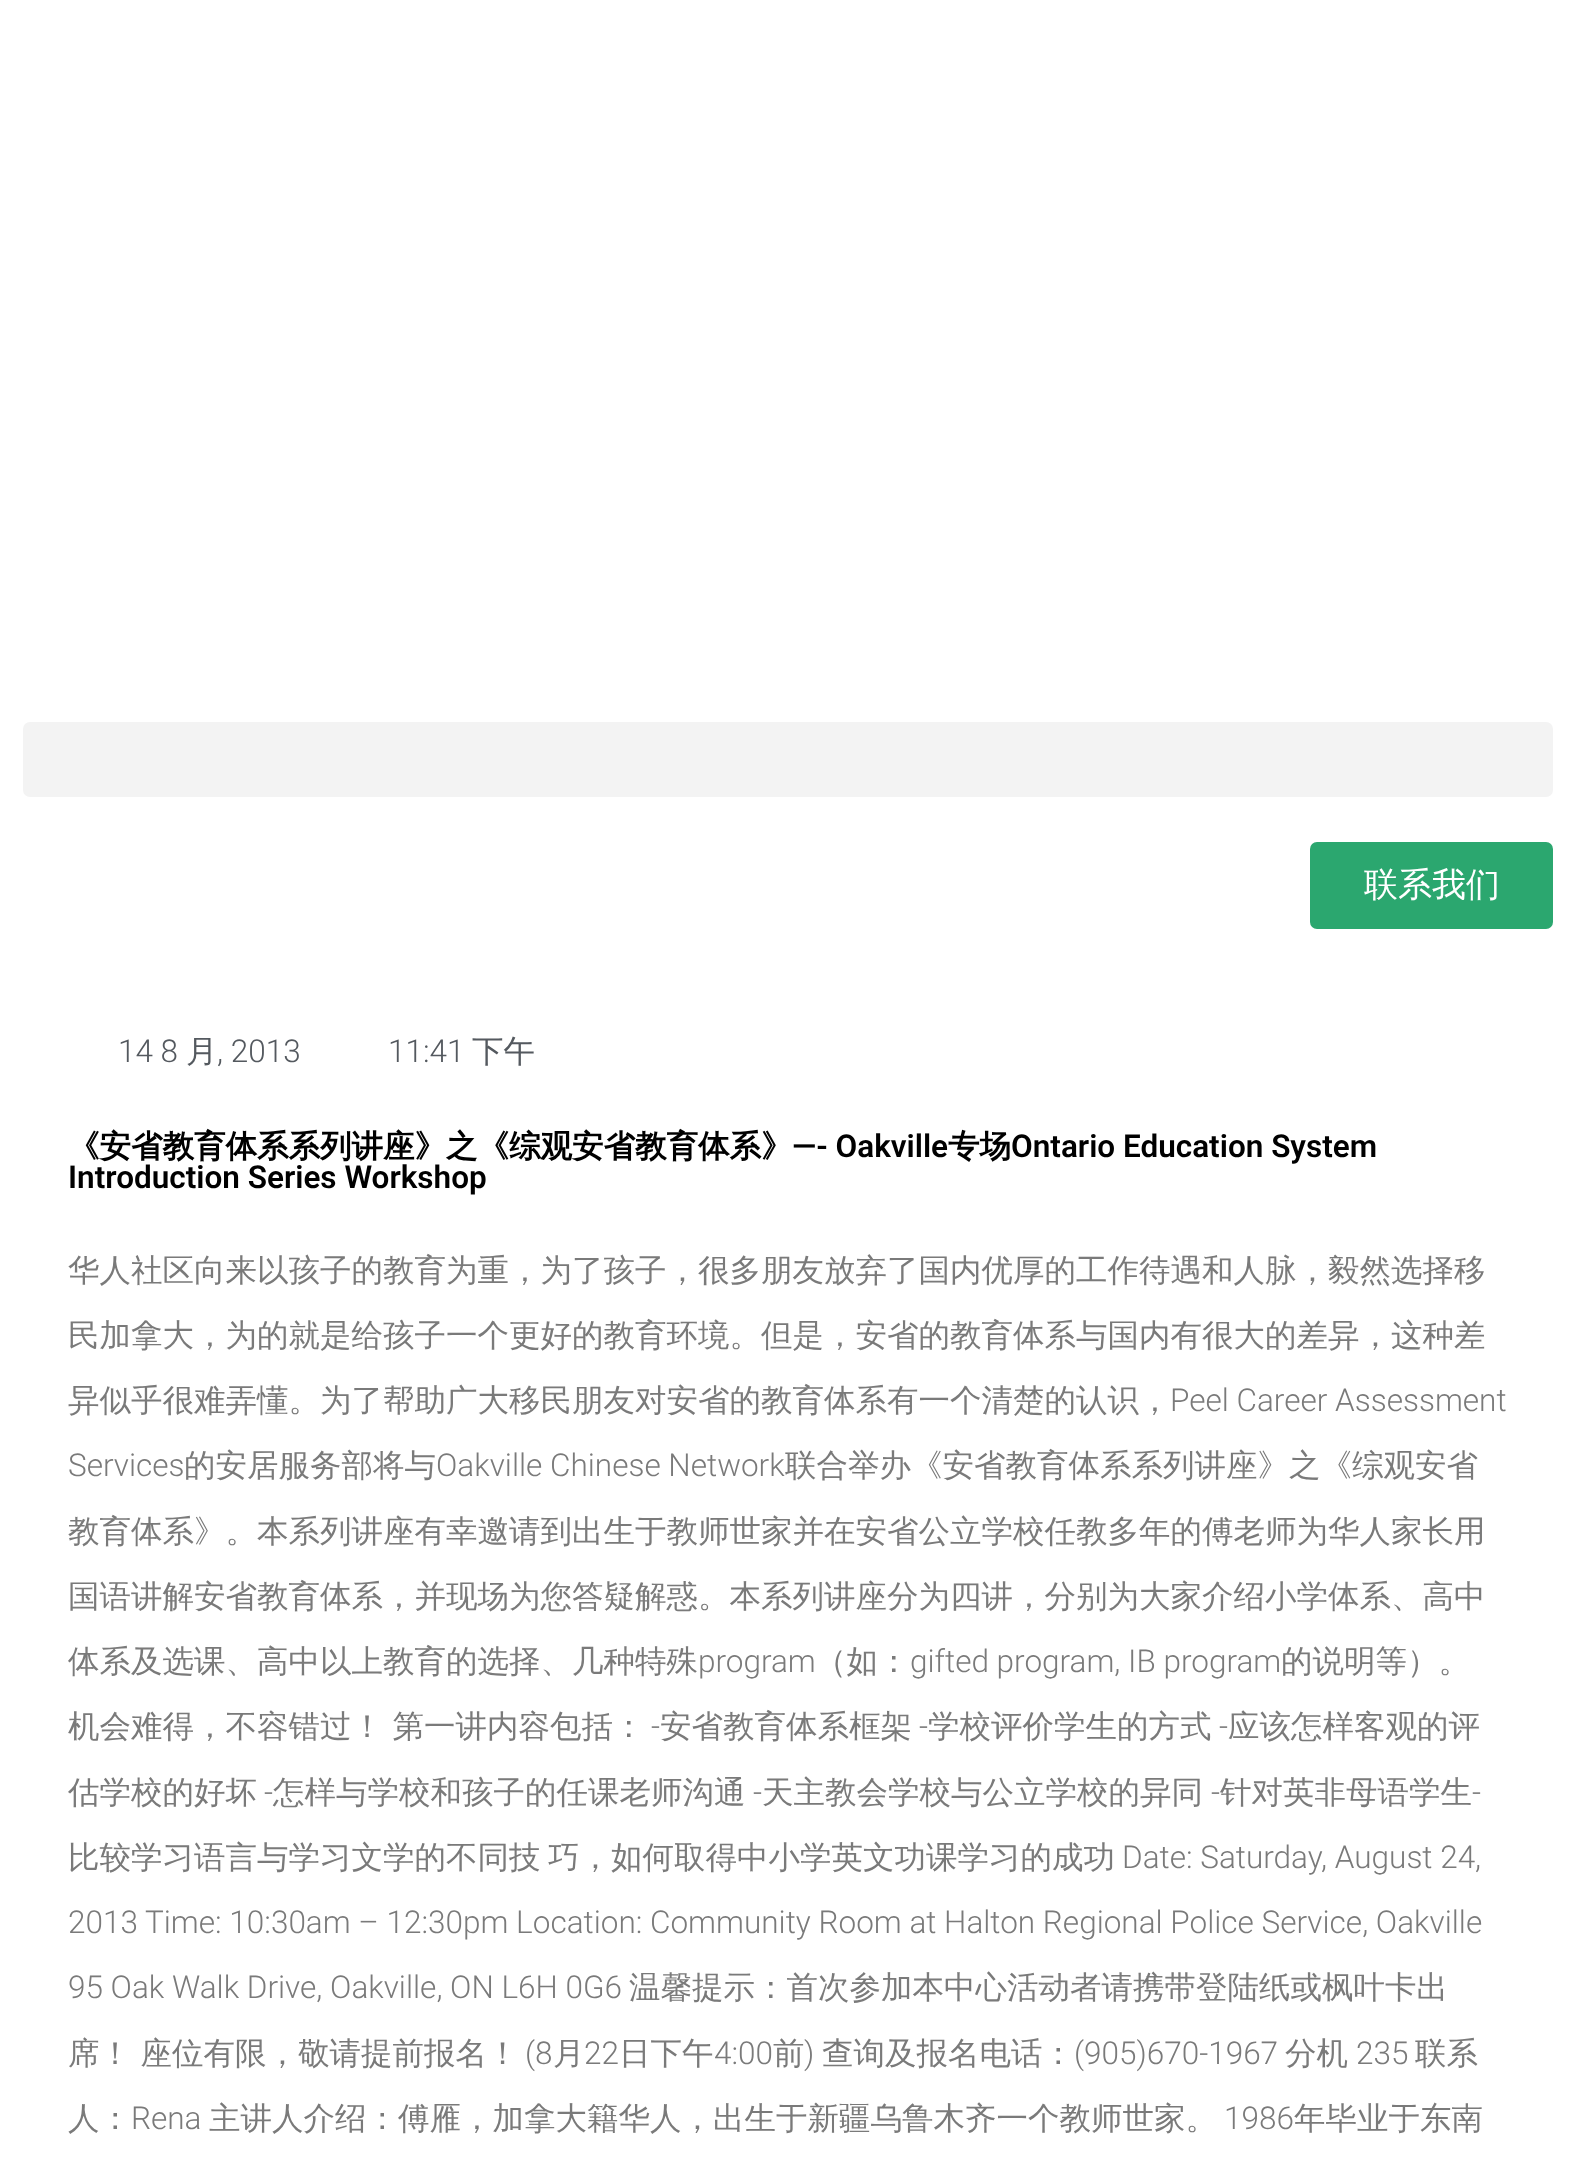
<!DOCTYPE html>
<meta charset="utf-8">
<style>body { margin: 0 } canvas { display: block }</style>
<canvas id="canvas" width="1575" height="2158"></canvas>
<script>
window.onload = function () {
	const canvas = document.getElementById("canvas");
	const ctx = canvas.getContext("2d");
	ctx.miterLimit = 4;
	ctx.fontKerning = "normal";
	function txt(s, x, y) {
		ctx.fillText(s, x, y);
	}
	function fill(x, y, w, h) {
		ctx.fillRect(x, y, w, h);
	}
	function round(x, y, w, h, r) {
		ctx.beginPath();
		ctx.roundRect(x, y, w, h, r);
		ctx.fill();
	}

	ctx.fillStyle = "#FFFFFF";
	fill(0, 0, 1575, 2158);
	ctx.fillStyle = "#F3F3F3";
	round(23, 722, 1530, 75, 7);
	ctx.fillStyle = "#2BA76F";
	round(1310, 842, 243, 87, 7);
	ctx.font = "500 34px WenQuanYi Zen Hei";
	ctx.fillStyle = "#FFFFFF";
	txt("联系我们", 1364, 896);
	ctx.font = "300 31.5px Roboto";
	ctx.fillStyle = "#54595F";
	txt("14 8", 118, 1062);
	ctx.font = "500 31.5px WenQuanYi Zen Hei";
	txt("月", 186, 1062);
	ctx.font = "300 31.5px Roboto";
	txt(", 2013", 217, 1062);
	txt("11:41", 388, 1062);
	ctx.font = "500 31.5px WenQuanYi Zen Hei";
	txt("下午", 472, 1062);
	ctx.font = "bold 31.5px WenQuanYi Zen Hei";
	ctx.fillStyle = "#000000";
	txt("《安省教育体系系列讲座》之《综观安省教育体系》", 68, 1157);
	ctx.font = "600 31.5px Roboto";
	txt("—- Oakville", 792, 1157);
	ctx.font = "bold 31.5px WenQuanYi Zen Hei";
	txt("专场", 948, 1157);
	ctx.font = "600 31.5px Roboto";
	txt("Ontario Education System", 1011, 1157);
	txt("Introduction Series Workshop", 68, 1188);
	ctx.font = "500 31.5px WenQuanYi Zen Hei";
	ctx.fillStyle = "#7A7A7A";
	txt("华人社区向来以孩子的教育为重，为了孩子，很多朋友放弃了国内优厚的工作待遇和人脉，毅然选择移", 68, 1281);
	txt("民加拿大，为的就是给孩子一个更好的教育环境。但是，安省的教育体系与国内有很大的差异，这种差", 68, 1346);
	txt("异似乎很难弄懂。为了帮助广大移民朋友对安省的教育体系有一个清楚的认识，", 68, 1411);
	ctx.font = "300 31.5px Roboto";
	txt("Peel Career Assessment", 1170, 1411);
	txt("Services", 68, 1476);
	ctx.font = "500 31.5px WenQuanYi Zen Hei";
	txt("的安居服务部将与", 184, 1476);
	ctx.font = "300 31.5px Roboto";
	txt("Oakville Chinese Network", 436, 1476);
	ctx.font = "500 31.5px WenQuanYi Zen Hei";
	txt("联合举办《安省教育体系系列讲座》之《综观安省", 785, 1476);
	txt("教育体系》。本系列讲座有幸邀请到出生于教师世家并在安省公立学校任教多年的傅老师为华人家长用", 68, 1542);
	txt("国语讲解安省教育体系，并现场为您答疑解惑。本系列讲座分为四讲，分别为大家介绍小学体系、高中", 68, 1607);
	txt("体系及选课、高中以上教育的选择、几种特殊", 68, 1672);
	ctx.font = "300 31.5px Roboto";
	txt("program", 698, 1672);
	ctx.font = "500 31.5px WenQuanYi Zen Hei";
	txt("（如：", 815, 1672);
	ctx.font = "300 31.5px Roboto";
	txt("gifted program, IB program", 910, 1672);
	ctx.font = "500 31.5px WenQuanYi Zen Hei";
	txt("的说明等）。", 1281, 1672);
	txt("机会难得，不容错过！ 第一讲内容包括：", 68, 1737);
	ctx.font = "300 31.5px Roboto";
	txt("-", 651, 1737);
	ctx.font = "500 31.5px WenQuanYi Zen Hei";
	txt("安省教育体系框架", 660, 1737);
	ctx.font = "300 31.5px Roboto";
	txt("-", 919, 1737);
	ctx.font = "500 31.5px WenQuanYi Zen Hei";
	txt("学校评价学生的方式", 928, 1737);
	ctx.font = "300 31.5px Roboto";
	txt("-", 1219, 1737);
	ctx.font = "500 31.5px WenQuanYi Zen Hei";
	txt("应该怎样客观的评", 1228, 1737);
	txt("估学校的好坏", 68, 1803);
	ctx.font = "300 31.5px Roboto";
	txt("-", 264, 1803);
	ctx.font = "500 31.5px WenQuanYi Zen Hei";
	txt("怎样与学校和孩子的任课老师沟通", 273, 1803);
	ctx.font = "300 31.5px Roboto";
	txt("-", 753, 1803);
	ctx.font = "500 31.5px WenQuanYi Zen Hei";
	txt("天主教会学校与公立学校的异同", 762, 1803);
	ctx.font = "300 31.5px Roboto";
	txt("-", 1211, 1803);
	ctx.font = "500 31.5px WenQuanYi Zen Hei";
	txt("针对英非母语学生", 1220, 1803);
	ctx.font = "300 31.5px Roboto";
	txt("-", 1472, 1803);
	ctx.font = "500 31.5px WenQuanYi Zen Hei";
	txt("比较学习语言与学习文学的不同技", 68, 1868);
	txt("巧，如何取得中小学英文功课学习的成功", 548, 1868);
	ctx.font = "300 31.5px Roboto";
	txt("Date: Saturday, August 24,", 1122, 1868);
	txt("2013 Time: 10:30am – 12:30pm Location: Community Room at Halton Regional Police Service, Oakville", 68, 1933);
	txt("95 Oak Walk Drive, Oakville, ON L6H 0G6", 68, 1998);
	ctx.font = "500 31.5px WenQuanYi Zen Hei";
	txt("温馨提示：首次参加本中心活动者请携带登陆纸或枫叶卡出", 629, 1998);
	txt("席！ 座位有限，敬请提前报名！", 68, 2064);
	ctx.font = "300 31.5px Roboto";
	txt("(8", 525, 2064);
	ctx.font = "500 31.5px WenQuanYi Zen Hei";
	txt("月", 553, 2064);
	ctx.font = "300 31.5px Roboto";
	txt("22", 584, 2064);
	ctx.font = "500 31.5px WenQuanYi Zen Hei";
	txt("日下午", 619, 2064);
	ctx.font = "300 31.5px Roboto";
	txt("4:00", 714, 2064);
	ctx.font = "500 31.5px WenQuanYi Zen Hei";
	txt("前", 773, 2064);
	ctx.font = "300 31.5px Roboto";
	txt(")", 804, 2064);
	ctx.font = "500 31.5px WenQuanYi Zen Hei";
	txt("查询及报名电话：", 822, 2064);
	ctx.font = "300 31.5px Roboto";
	txt("(905)670-1967", 1074, 2064);
	ctx.font = "500 31.5px WenQuanYi Zen Hei";
	txt("分机", 1285, 2064);
	ctx.font = "300 31.5px Roboto";
	txt("235", 1356, 2064);
	ctx.font = "500 31.5px WenQuanYi Zen Hei";
	txt("联系", 1415, 2064);
	txt("人：", 68, 2129);
	ctx.font = "300 31.5px Roboto";
	txt("Rena", 131, 2129);
	ctx.font = "500 31.5px WenQuanYi Zen Hei";
	txt("主讲人介绍：傅雁，加拿大籍华人，出生于新疆乌鲁木齐一个教师世家。", 209, 2129);
	ctx.font = "300 31.5px Roboto";
	txt("1986", 1224, 2129);
	ctx.font = "500 31.5px WenQuanYi Zen Hei";
	txt("年毕业于东南", 1294, 2129);
};
</script>
